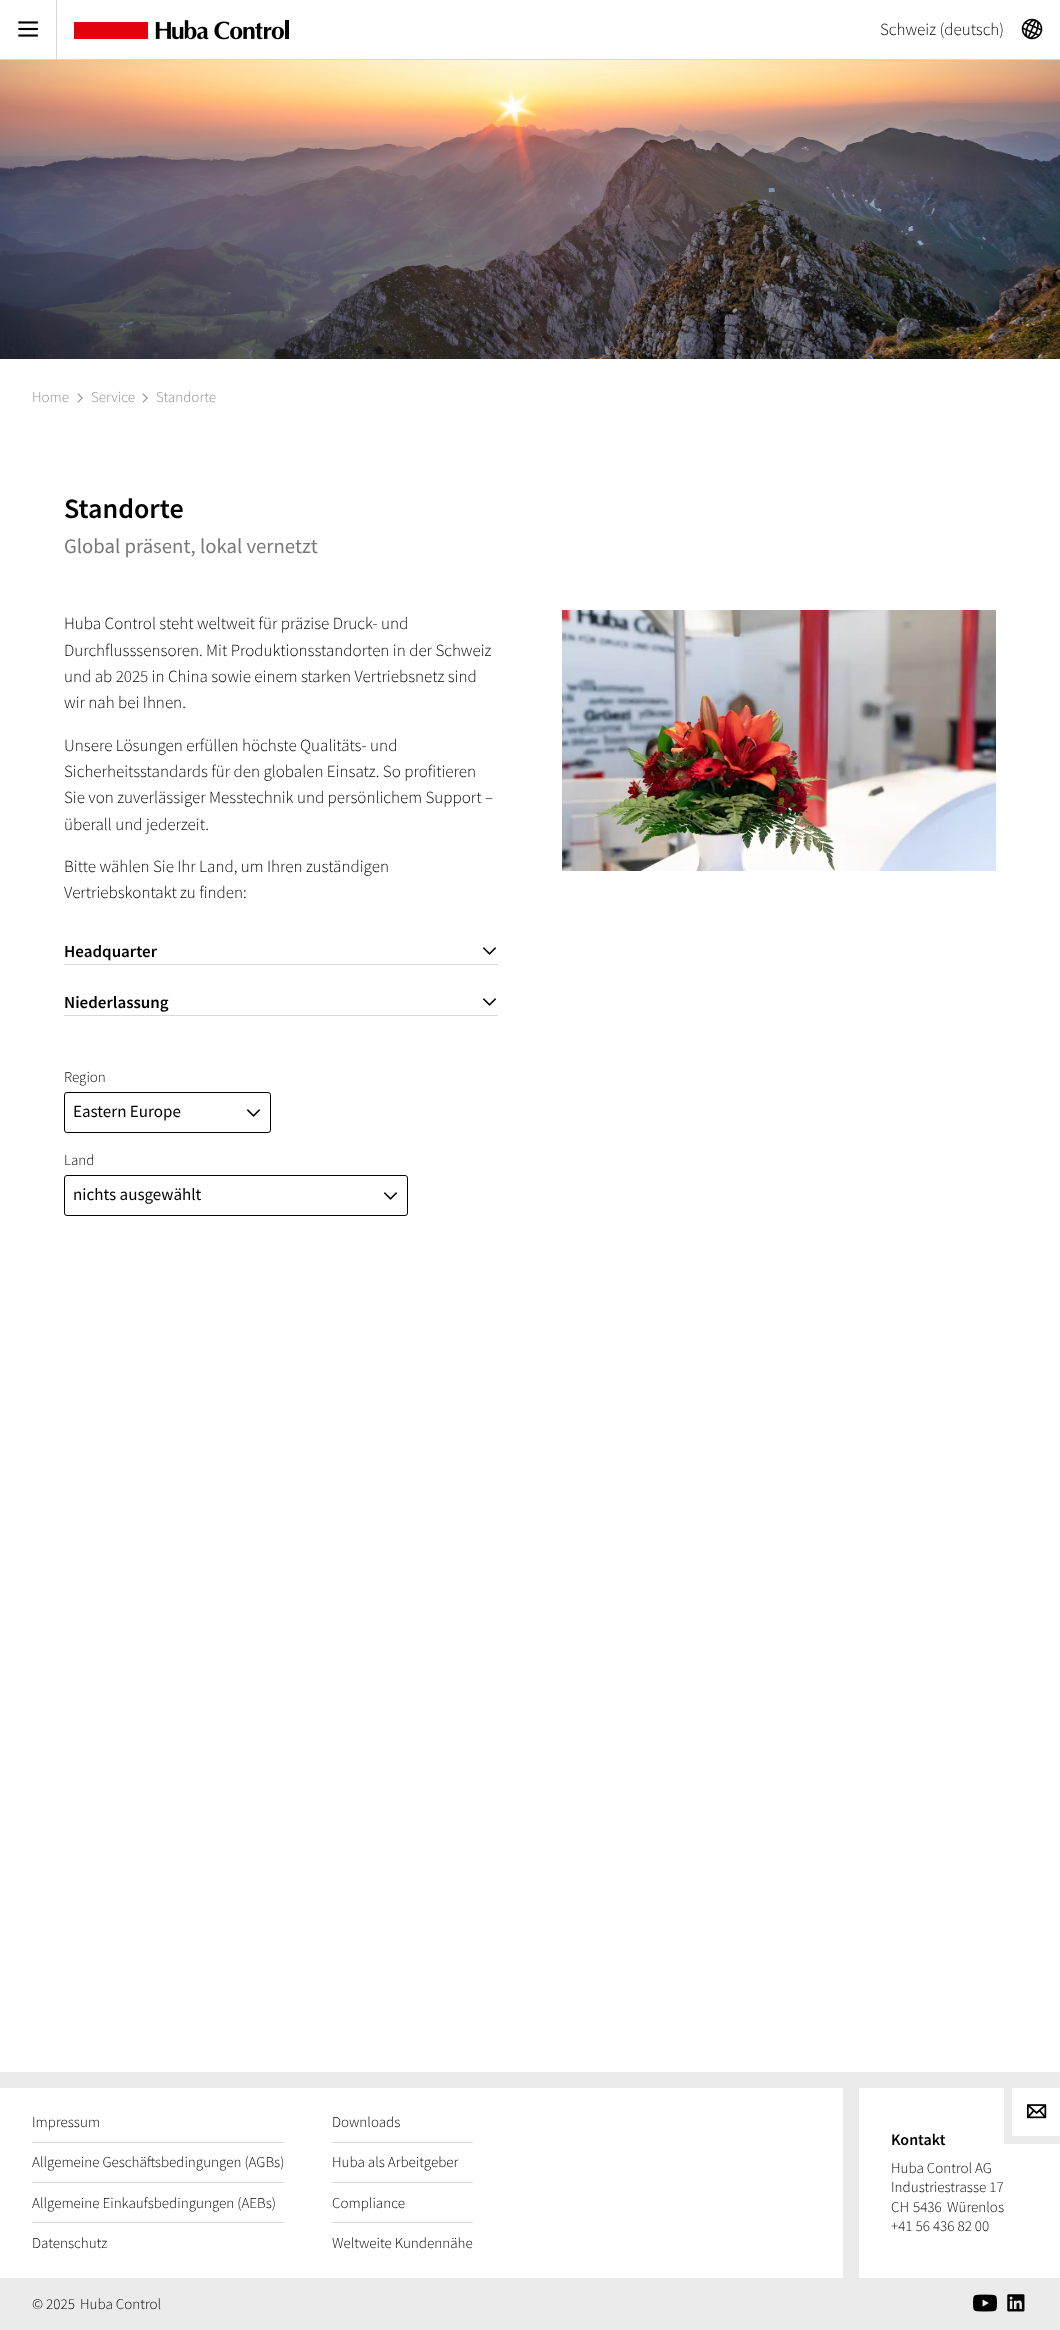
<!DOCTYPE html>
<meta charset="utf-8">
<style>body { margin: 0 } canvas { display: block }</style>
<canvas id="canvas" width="1060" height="2330"></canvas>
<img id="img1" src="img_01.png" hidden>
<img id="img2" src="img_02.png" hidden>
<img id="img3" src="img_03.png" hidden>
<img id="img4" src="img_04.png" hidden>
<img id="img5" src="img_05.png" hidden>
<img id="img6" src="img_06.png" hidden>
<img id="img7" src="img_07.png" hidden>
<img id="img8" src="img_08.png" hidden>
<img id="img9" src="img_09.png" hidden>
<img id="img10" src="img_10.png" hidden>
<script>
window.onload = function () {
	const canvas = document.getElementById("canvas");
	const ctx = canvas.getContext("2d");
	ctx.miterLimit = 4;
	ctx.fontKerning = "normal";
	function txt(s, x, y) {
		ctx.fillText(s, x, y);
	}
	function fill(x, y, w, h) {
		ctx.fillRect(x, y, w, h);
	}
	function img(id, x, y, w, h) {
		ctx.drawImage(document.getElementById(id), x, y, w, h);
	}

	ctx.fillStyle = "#FFFFFF";
	fill(0, 0, 1060, 2330);
	ctx.fillStyle = "#D8D8D8";
	fill(0, 59, 1060, 1);
	img("img1", 18, 21, 20, 16);
	fill(56, 0, 1, 59);
	img("img2", 74, 20, 215, 20);
	img("img3", 1021, 18, 22, 22);
	img("img4", 0, 60, 1060, 299);
	img("img5", 77, 393, 6, 10);
	img("img5", 142, 393, 6, 10);
	fill(64, 964, 434, 1);
	img("img6", 483, 947, 13, 8);
	fill(64, 1015, 434, 1);
	img("img6", 483, 998, 13, 8);
	ctx.beginPath();
	ctx.roundRect(64.5, 1092.5, 206, 40, 2.5);
	ctx.strokeStyle = "#000000";
	ctx.stroke();
	img("img6", 247, 1109, 13, 8);
	ctx.beginPath();
	ctx.roundRect(64.5, 1175.5, 343, 40, 2.5);
	ctx.stroke();
	img("img6", 384, 1192, 13, 8);
	img("img7", 562, 610, 434, 261);
	ctx.fillStyle = "#EBEBEB";
	fill(0, 2072, 1060, 16);
	ctx.fillStyle = "#D8D8D8";
	fill(32, 2142, 252, 1);
	fill(32, 2182, 252, 1);
	fill(32, 2222, 252, 1);
	fill(332, 2142, 141, 1);
	fill(332, 2182, 141, 1);
	fill(332, 2222, 141, 1);
	ctx.fillStyle = "#EBEBEB";
	fill(843, 2088, 16, 190);
	fill(1004, 2136, 56, 8);
	fill(1004, 2088, 8, 56);
	img("img8", 1027, 2104, 20, 15);
	fill(0, 2278, 1060, 52);
	img("img9", 973, 2294, 24, 18);
	img("img10", 1007, 2294, 18, 18);
	ctx.font = "300 17px Source Sans Pro";
	ctx.fillStyle = "#000000";
	txt("Schweiz (deutsch)", 880, 35);
	ctx.font = "300 15px Source Sans Pro";
	ctx.fillStyle = "#8F8F8F";
	txt("Home", 32, 402);
	txt("Service", 91, 402);
	txt("Standorte", 156, 402);
	ctx.font = "600 28px Source Sans Pro";
	ctx.fillStyle = "#000000";
	txt("Standorte", 64, 518);
	ctx.font = "20.75px Source Sans Pro";
	ctx.fillStyle = "#787878";
	txt("Global präsent, lokal vernetzt", 64, 553);
	ctx.font = "300 17px Source Sans Pro";
	ctx.fillStyle = "#000000";
	txt("Huba Control steht weltweit für präzise Druck- und", 64, 629);
	txt("Durchflusssensoren. Mit Produktionsstandorten in der Schweiz", 64, 656);
	txt("und ab 2025 in China sowie einem starken Vertriebsnetz sind", 64, 682);
	txt("wir nah bei Ihnen.", 64, 708);
	txt("Unsere Lösungen erfüllen höchste Qualitäts- und", 64, 751);
	txt("Sicherheitsstandards für den globalen Einsatz. So profitieren", 64, 777);
	txt("Sie von zuverlässiger Messtechnik und persönlichem Support –", 64, 803);
	txt("überall und jederzeit.", 64, 830);
	txt("Bitte wählen Sie Ihr Land, um Ihren zuständigen", 64, 872);
	txt("Vertriebskontakt zu finden:", 64, 898);
	ctx.font = "600 17px Source Sans Pro";
	txt("Headquarter", 64, 957);
	txt("Niederlassung", 64, 1008);
	ctx.font = "300 15px Source Sans Pro";
	txt("Region", 64, 1082);
	ctx.font = "17px Source Sans Pro";
	txt("Eastern Europe", 73, 1117);
	ctx.font = "300 15px Source Sans Pro";
	txt("Land", 64, 1165);
	ctx.font = "17px Source Sans Pro";
	txt("nichts ausgewählt", 73, 1200);
	ctx.font = "300 15px Source Sans Pro";
	txt("Impressum", 32, 2127);
	txt("Allgemeine Geschäftsbedingungen (AGBs)", 32, 2167);
	txt("Allgemeine Einkaufsbedingungen (AEBs)", 32, 2208);
	txt("Datenschutz", 32, 2248);
	txt("Downloads", 332, 2127);
	txt("Huba als Arbeitgeber", 332, 2167);
	txt("Compliance", 332, 2208);
	txt("Weltweite Kundennähe", 332, 2248);
	ctx.font = "600 16px Source Sans Pro";
	txt("Kontakt", 891, 2145);
	ctx.font = "300 15px Source Sans Pro";
	txt("Huba Control AG", 891, 2173);
	txt("Industriestrasse 17", 891, 2192);
	txt("CH", 891, 2212);
	txt("5436", 913, 2212);
	txt("Würenlos", 947, 2212);
	txt("+41 56 436 82 00", 891, 2231);
	txt("© 2025", 32, 2309);
	txt("Huba Control", 80, 2309);
};
</script>
